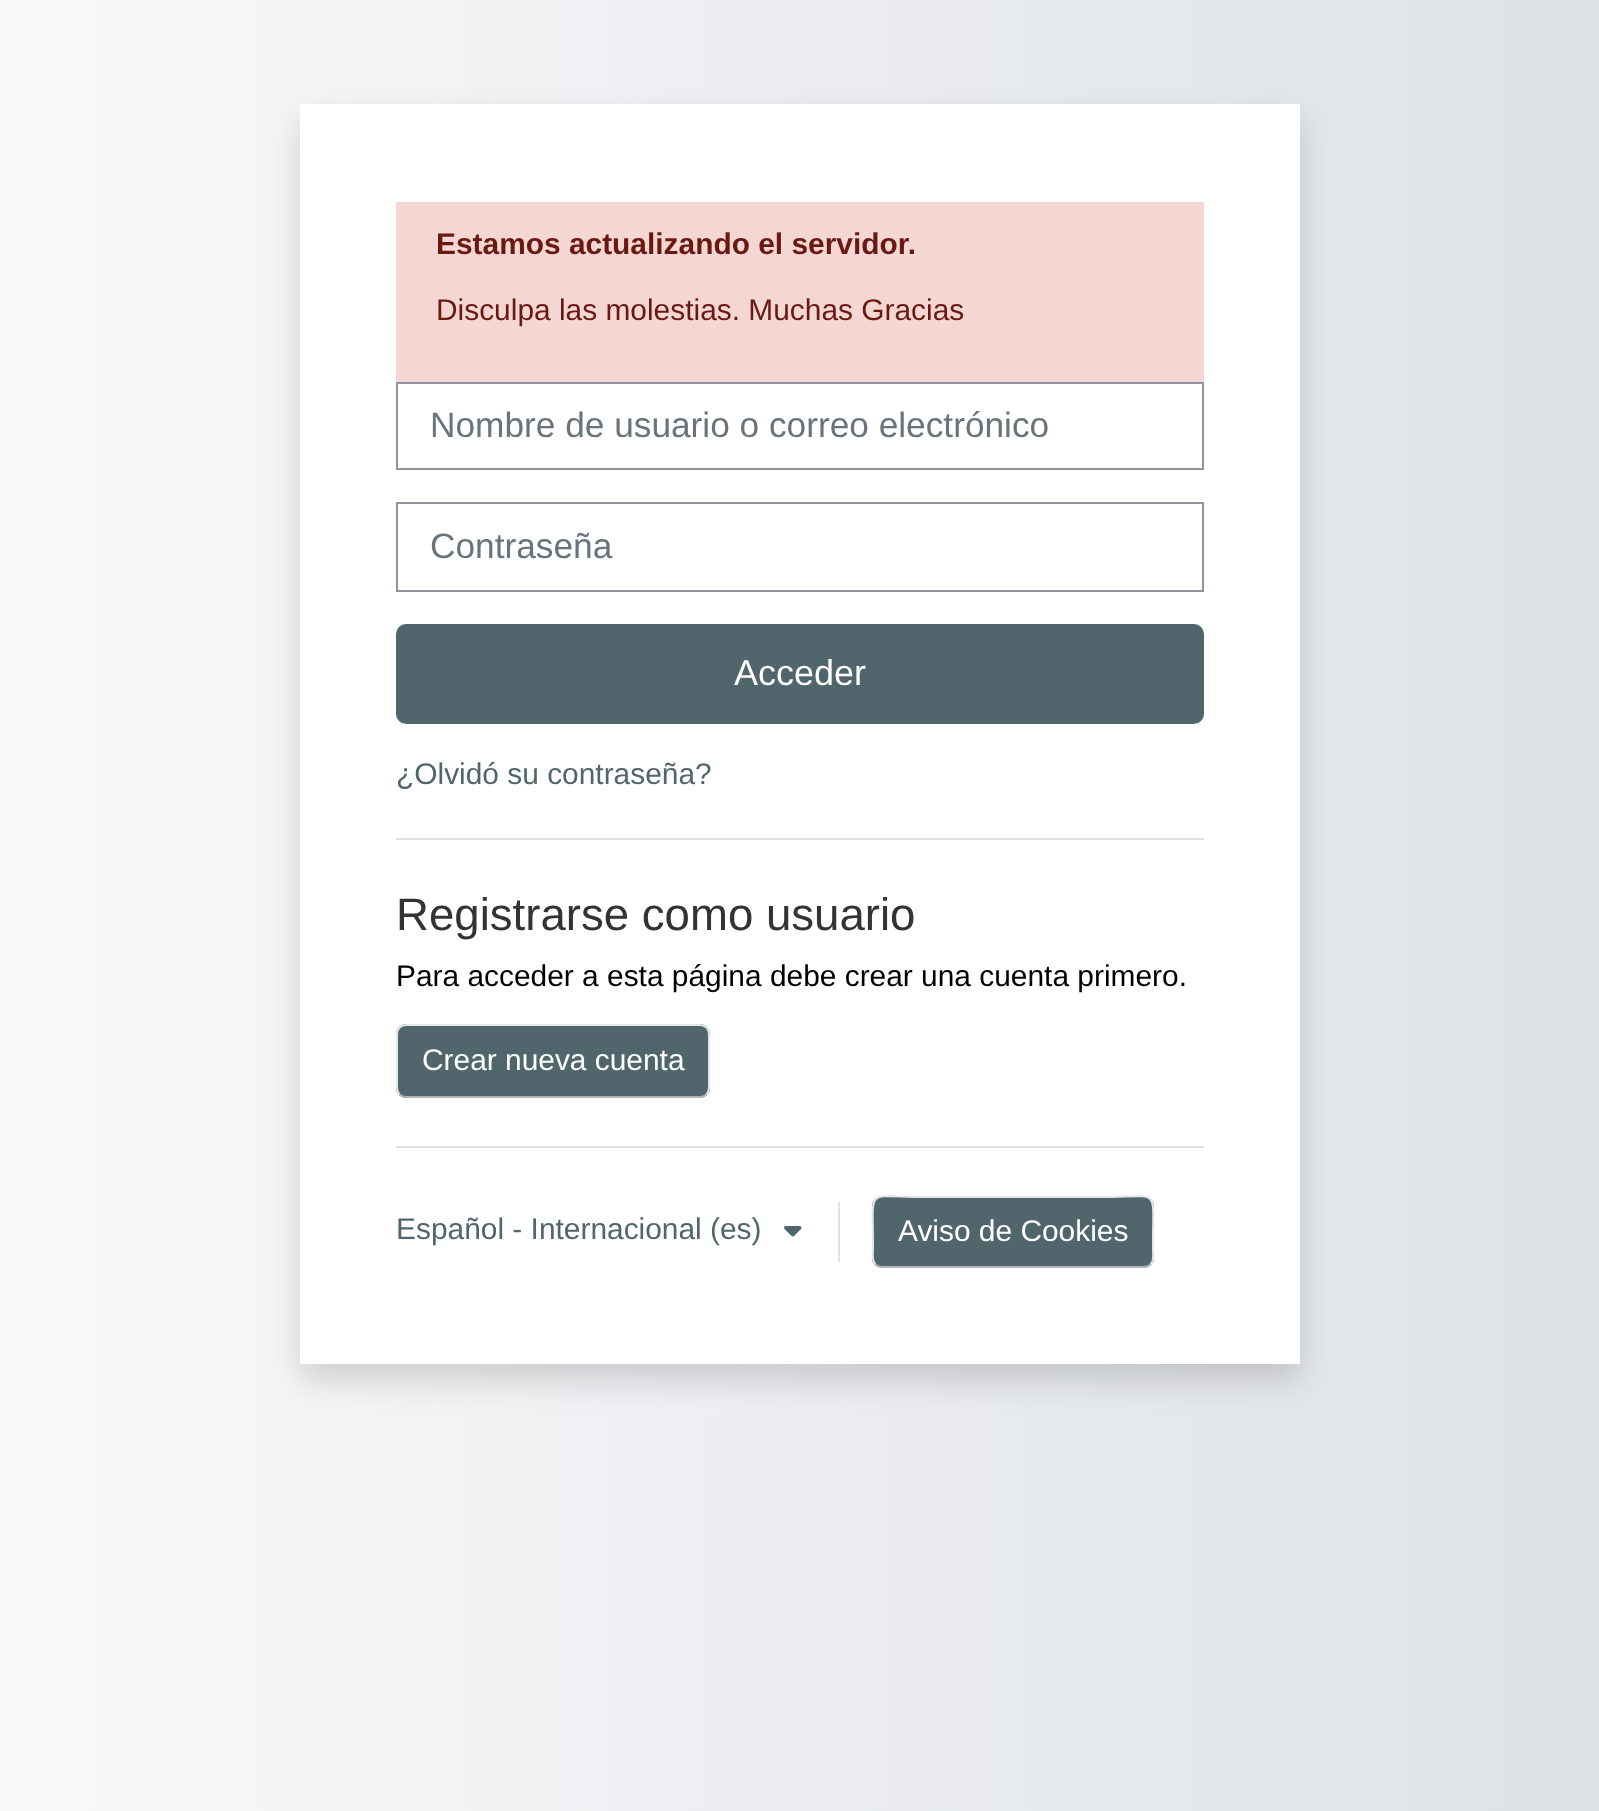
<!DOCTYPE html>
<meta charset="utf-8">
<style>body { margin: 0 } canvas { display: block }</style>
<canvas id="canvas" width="1599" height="1811"></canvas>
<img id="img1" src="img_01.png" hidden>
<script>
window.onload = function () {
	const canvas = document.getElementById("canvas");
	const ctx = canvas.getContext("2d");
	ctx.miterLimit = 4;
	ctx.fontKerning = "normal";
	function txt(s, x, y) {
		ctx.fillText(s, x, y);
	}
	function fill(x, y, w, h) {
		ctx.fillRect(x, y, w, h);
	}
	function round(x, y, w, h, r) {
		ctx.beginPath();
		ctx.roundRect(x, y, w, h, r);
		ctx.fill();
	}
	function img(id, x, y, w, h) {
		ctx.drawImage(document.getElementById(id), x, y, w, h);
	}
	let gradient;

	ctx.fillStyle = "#FFFFFF";
	fill(0, 0, 1599, 1811);
	gradient = ctx.createLinearGradient(0, 906, 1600, 906);
	gradient.addColorStop(0, "#F8F9FA");
	gradient.addColorStop(1, "#DEE2E6");
	ctx.fillStyle = gradient;
	fill(0, 0, 1599, 1811);
	ctx.fillStyle = "rgba(0, 0, 0, 0.15)";
	ctx.filter = "blur(16px)";
	ctx.beginPath();
	ctx.rect(300, 120, 1000, 1260);
	ctx.fill();
	ctx.filter = "none";
	ctx.fillStyle = "#FFFFFF";
	fill(300, 104, 1000, 1260);
	ctx.fillStyle = "#F4D6D2";
	fill(396, 202, 808, 180);
	ctx.strokeStyle = "#8F959E";
	ctx.lineWidth = 2;
	ctx.strokeRect(397, 383, 806, 86);
	ctx.strokeRect(397, 503, 806, 88);
	ctx.fillStyle = "#51666C";
	round(396, 624, 808, 100, 10);
	ctx.fillStyle = "#DEE2E6";
	fill(396, 838, 808, 2);
	ctx.fillStyle = "#51666C";
	round(396, 1024, 314, 74, 10);
	ctx.beginPath();
	ctx.moveTo(706.5, 1094.5);
	ctx.bezierCurveTo(704.5, 1096, 702.5, 1097, 700, 1097);
	ctx.lineTo(406, 1097);
	ctx.bezierCurveTo(403.5, 1097, 401.5, 1096, 399.5, 1094.5);
	ctx.strokeStyle = "#B3B3B3";
	ctx.stroke();
	ctx.beginPath();
	ctx.moveTo(399.5, 1094.5);
	ctx.bezierCurveTo(398, 1092.5, 397, 1090.5, 397, 1088);
	ctx.lineTo(397, 1034);
	ctx.bezierCurveTo(397, 1031.5, 398, 1029.5, 399.5, 1027.5);
	ctx.bezierCurveTo(401.5, 1026, 403.5, 1025, 406, 1025);
	ctx.lineTo(700, 1025);
	ctx.bezierCurveTo(702.5, 1025, 704.5, 1026, 706.5, 1027.5);
	ctx.bezierCurveTo(708, 1029.5, 709, 1031.5, 709, 1034);
	ctx.lineTo(709, 1088);
	ctx.bezierCurveTo(709, 1090.5, 708, 1092.5, 706.5, 1094.5);
	ctx.strokeStyle = "#E6E6E6";
	ctx.stroke();
	ctx.fillStyle = "#DEE2E6";
	fill(396, 1146, 808, 2);
	img("img1", 784, 1226, 18, 11);
	fill(838, 1202, 2, 60);
	ctx.fillStyle = "#51666C";
	round(872, 1196, 282, 72, 10);
	ctx.beginPath();
	ctx.moveTo(1150.5, 1264.5);
	ctx.bezierCurveTo(1148.5, 1266, 1146.5, 1267, 1144, 1267);
	ctx.lineTo(882, 1267);
	ctx.bezierCurveTo(879.5, 1267, 877.5, 1266, 875.5, 1264.5);
	ctx.strokeStyle = "#B3B3B3";
	ctx.stroke();
	ctx.beginPath();
	ctx.moveTo(875.5, 1264.5);
	ctx.bezierCurveTo(871.5, 1260.5, 873, 1254, 873, 1249.5);
	ctx.lineTo(873, 1240.5);
	ctx.bezierCurveTo(873, 1186.5, 865.5, 1197, 925.5, 1197);
	ctx.lineTo(1100.5, 1197);
	ctx.bezierCurveTo(1160.5, 1197, 1153, 1186.5, 1153, 1240.5);
	ctx.lineTo(1153, 1249.5);
	ctx.bezierCurveTo(1153, 1254, 1154.5, 1260.5, 1150.5, 1264.5);
	ctx.strokeStyle = "#E6E6E6";
	ctx.stroke();
	ctx.font = "bold 29.9px Liberation Sans";
	ctx.fillStyle = "#691911";
	txt("Estamos actualizando el servidor.", 436, 254);
	ctx.font = "29.9px Liberation Sans";
	txt("Disculpa las molestias. Muchas Gracias", 436, 320);
	ctx.font = "35.25px Liberation Sans";
	ctx.fillStyle = "#6A737B";
	txt("Nombre de usuario o correo electrónico", 430, 437);
	txt("Contraseña", 430, 558);
	ctx.font = "36px Liberation Sans";
	ctx.fillStyle = "#FFFFFF";
	txt("Acceder", 734, 685);
	ctx.font = "29.9px Liberation Sans";
	ctx.fillStyle = "#51666C";
	txt("¿Olvidó su contraseña?", 396, 784);
	ctx.font = "45.6px Liberation Sans";
	ctx.fillStyle = "#333333";
	txt("Registrarse como usuario", 396, 930);
	ctx.font = "29.9px Liberation Sans";
	ctx.fillStyle = "#000000";
	txt("Para acceder a esta página debe crear una cuenta primero.", 396, 986);
	ctx.fillStyle = "#FFFFFF";
	txt("Crear nueva cuenta", 422, 1070);
	ctx.fillStyle = "#51666C";
	txt("Español - Internacional (es)", 396, 1239);
	ctx.fillStyle = "#FFFFFF";
	txt("Aviso de Cookies", 898, 1241);
};
</script>
